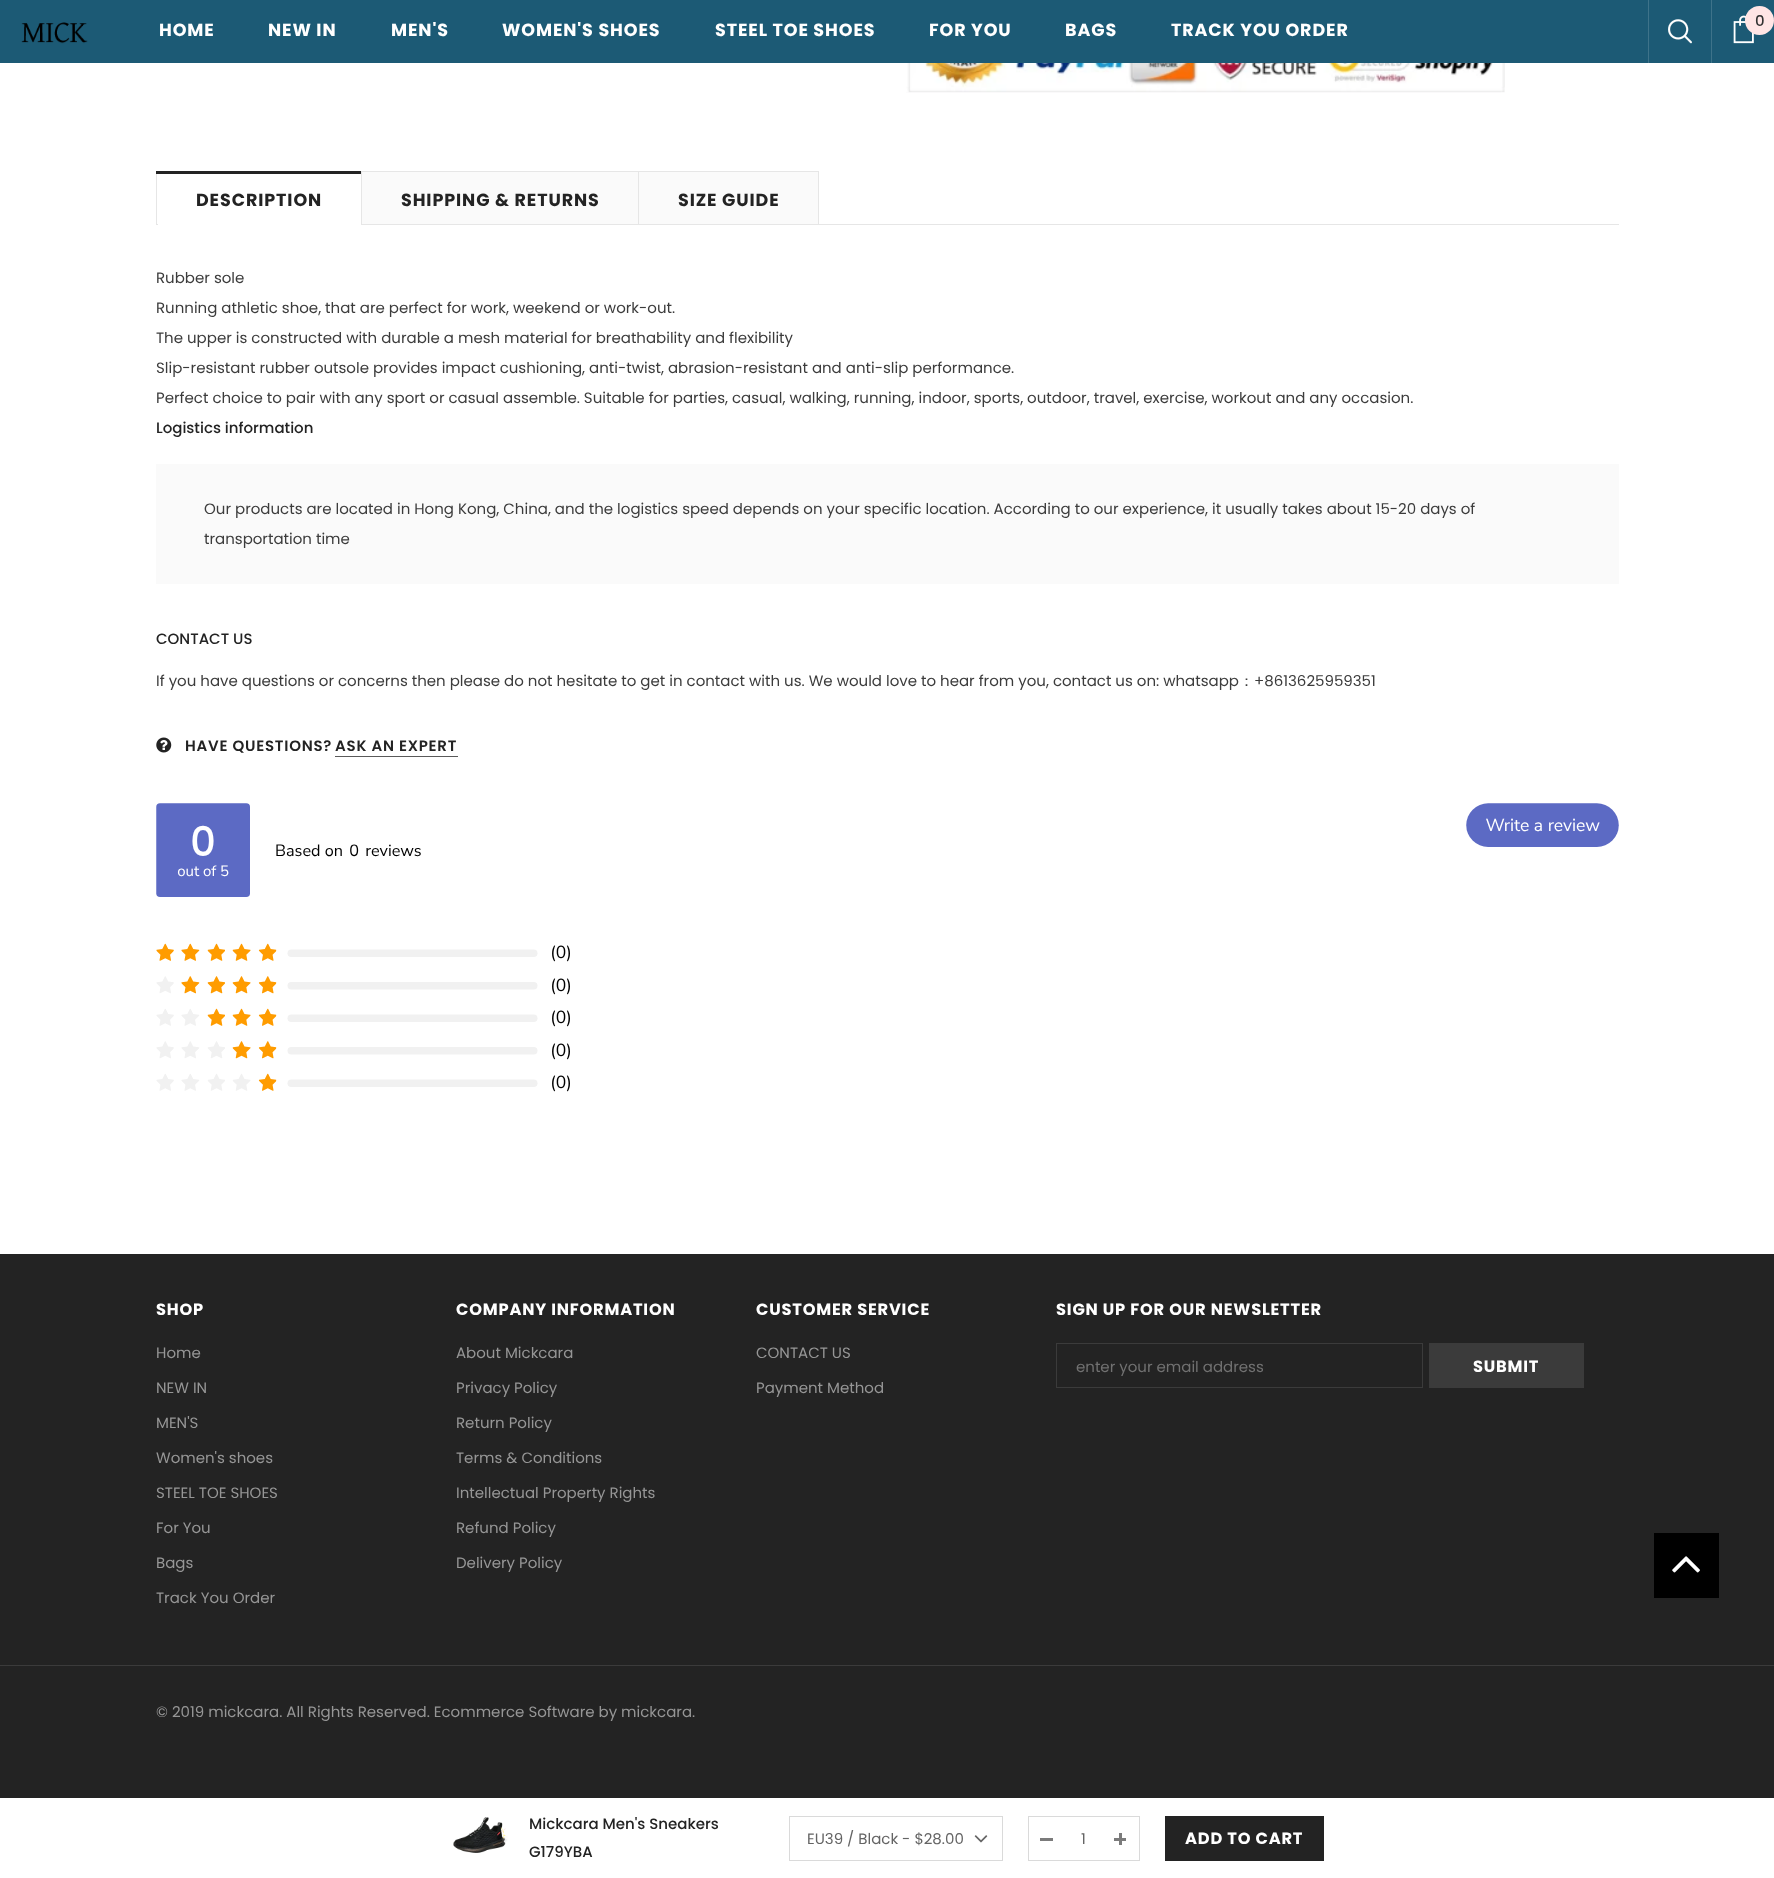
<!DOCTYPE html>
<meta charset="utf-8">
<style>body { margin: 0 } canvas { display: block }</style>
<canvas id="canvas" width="1774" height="1878"></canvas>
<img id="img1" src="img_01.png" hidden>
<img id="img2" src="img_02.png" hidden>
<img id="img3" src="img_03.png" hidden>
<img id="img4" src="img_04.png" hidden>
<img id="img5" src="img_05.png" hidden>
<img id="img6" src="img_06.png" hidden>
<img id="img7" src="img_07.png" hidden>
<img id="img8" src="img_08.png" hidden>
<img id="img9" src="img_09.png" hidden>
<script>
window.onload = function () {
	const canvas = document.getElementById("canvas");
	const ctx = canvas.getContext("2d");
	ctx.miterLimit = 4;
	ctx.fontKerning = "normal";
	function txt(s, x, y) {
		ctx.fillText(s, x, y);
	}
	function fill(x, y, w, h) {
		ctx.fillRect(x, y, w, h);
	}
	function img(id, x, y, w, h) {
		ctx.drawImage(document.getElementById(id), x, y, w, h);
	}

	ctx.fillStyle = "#FFFFFF";
	fill(0, 0, 1774, 1878);
	ctx.fillStyle = "#1C5A75";
	fill(0, 0, 1774, 63);
	img("img1", 1733, 15, 21, 29);
	ctx.fillStyle = "#FFE5E5";
	ctx.beginPath();
	ctx.arc(1759.5, 20.5, 14.5, 0, Math.PI * 2);
	ctx.fill();
	img("img2", 21, 22, 67, 22);
	ctx.fillStyle = "#3E738A";
	fill(1648, 0, 1, 63);
	img("img3", 1668, 19, 24, 25);
	fill(1711, 0, 1, 63);
	img("img4", 906, 63, 599, 30);
	ctx.fillStyle = "#E6E6E6";
	fill(156, 224, 1463, 1);
	fill(156, 171, 1, 53);
	ctx.fillStyle = "#232323";
	fill(156, 171, 207, 3);
	ctx.fillStyle = "#FFFFFF";
	fill(158, 224, 203, 1);
	ctx.fillStyle = "#FAFAFA";
	fill(362, 172, 276, 52);
	ctx.fillStyle = "#E6E6E6";
	fill(361, 171, 458, 1);
	fill(361, 171, 1, 53);
	ctx.fillStyle = "#FAFAFA";
	fill(639, 172, 179, 52);
	ctx.fillStyle = "#E6E6E6";
	fill(818, 171, 1, 53);
	fill(638, 171, 1, 53);
	ctx.fillStyle = "#FAFAFA";
	fill(156, 464, 1463, 120);
	img("img5", 156, 737, 16, 16);
	ctx.fillStyle = "#5A5A5A";
	fill(335, 756, 123, 1);
	img("img6", 156, 803, 1463, 289);
	img("img7", 453, 1817, 55, 36);
	ctx.strokeStyle = "#DADADA";
	ctx.strokeRect(789.5, 1816.5, 213, 44);
	img("img8", 974, 1835, 14, 8);
	ctx.strokeRect(1028.5, 1816.5, 111, 44);
	ctx.fillStyle = "#7B7B7B";
	fill(1040, 1838, 13, 3);
	fill(1114, 1838, 12, 3);
	fill(1119, 1833, 3, 12);
	ctx.fillStyle = "#232323";
	fill(1165, 1816, 159, 45);
	fill(0, 1254, 1774, 544);
	ctx.strokeStyle = "#3B3B3B";
	ctx.strokeRect(1056.5, 1343.5, 366, 44);
	ctx.fillStyle = "#3B3B3B";
	fill(1429, 1343, 155, 45);
	fill(0, 1665, 1774, 1);
	ctx.fillStyle = "#000000";
	fill(1654, 1533, 65, 65);
	img("img9", 1672, 1556, 28, 17);
	ctx.font = "500 15px Poppins";
	ctx.fillStyle = "#323232";
	txt("0", 1755, 26);
	ctx.letterSpacing = "0.9px";
	ctx.font = "bold 17.5px Poppins";
	ctx.fillStyle = "#FFFFFF";
	txt("HOME", 159, 36);
	txt("NEW IN", 268, 36);
	txt("MEN'S", 391, 36);
	txt("WOMEN'S SHOES", 502, 36);
	txt("STEEL TOE SHOES", 715, 36);
	txt("FOR YOU", 929, 36);
	txt("BAGS", 1065, 36);
	txt("TRACK YOU ORDER", 1171, 36);
	ctx.fillStyle = "#232323";
	txt("DESCRIPTION", 196, 206);
	txt("SHIPPING & RETURNS", 401, 206);
	txt("SIZE GUIDE", 678, 206);
	ctx.letterSpacing = "0px";
	ctx.font = "15px Poppins";
	ctx.fillStyle = "#3C3C3C";
	txt("Rubber sole", 156, 283);
	txt("Running athletic shoe, that are perfect for work, weekend or work-out.", 156, 313);
	txt("The upper is constructed with durable a mesh material for breathability and flexibility", 156, 343);
	txt("Slip-resistant rubber outsole provides impact cushioning, anti-twist, abrasion-resistant and anti-slip performance.", 156, 373);
	txt("Perfect choice to pair with any sport or casual assemble. Suitable for parties, casual, walking, running, indoor, sports, outdoor, travel, exercise, workout and any occasion.", 156, 403);
	ctx.font = "500 15px Poppins";
	ctx.fillStyle = "#232323";
	txt("Logistics information", 156, 433);
	ctx.font = "15px Poppins";
	ctx.fillStyle = "#3C3C3C";
	txt("Our products are located in Hong Kong, China, and the logistics speed depends on your specific location. According to our experience, it usually takes about 15-20 days of", 204, 514);
	txt("transportation time", 204, 544);
	ctx.font = "500 15px Poppins";
	ctx.fillStyle = "#232323";
	txt("CONTACT US", 156, 644);
	ctx.font = "15px Poppins";
	ctx.fillStyle = "#3C3C3C";
	txt("If you have questions or concerns then please do not hesitate to get in contact with us. We would love to hear from you, contact us on: whatsapp", 156, 686);
	ctx.font = "500 15px WenQuanYi Zen Hei";
	txt("：", 1239, 686);
	ctx.font = "15px Poppins";
	txt("+8613625959351", 1254, 686);
	ctx.letterSpacing = "0.75px";
	ctx.font = "600 15px Poppins";
	ctx.fillStyle = "#232323";
	txt("HAVE QUESTIONS?", 185, 751);
	txt("ASK AN EXPERT", 335, 751);
	ctx.letterSpacing = "0px";
	ctx.font = "500 15px Poppins";
	txt("Mickcara Men's Sneakers", 529, 1829);
	txt("G179YBA", 529, 1857);
	ctx.font = "15px Poppins";
	ctx.fillStyle = "#646464";
	txt("EU39 / Black - $28.00", 807, 1844);
	txt("1", 1081, 1844);
	ctx.letterSpacing = "0.8px";
	ctx.font = "bold 16.25px Poppins";
	ctx.fillStyle = "#FFFFFF";
	txt("ADD TO CART", 1185, 1844);
	txt("SHOP", 156, 1315);
	ctx.letterSpacing = "0px";
	ctx.font = "15px Poppins";
	ctx.fillStyle = "#969696";
	txt("Home", 156, 1358);
	txt("NEW IN", 156, 1393);
	txt("MEN'S", 156, 1428);
	txt("Women's shoes", 156, 1463);
	txt("STEEL TOE SHOES", 156, 1498);
	txt("For You", 156, 1533);
	txt("Bags", 156, 1568);
	txt("Track You Order", 156, 1603);
	ctx.letterSpacing = "0.8px";
	ctx.font = "bold 16.25px Poppins";
	ctx.fillStyle = "#FFFFFF";
	txt("COMPANY INFORMATION", 456, 1315);
	ctx.letterSpacing = "0px";
	ctx.font = "15px Poppins";
	ctx.fillStyle = "#969696";
	txt("About Mickcara", 456, 1358);
	txt("Privacy Policy", 456, 1393);
	txt("Return Policy", 456, 1428);
	txt("Terms & Conditions", 456, 1463);
	txt("Intellectual Property Rights", 456, 1498);
	txt("Refund Policy", 456, 1533);
	txt("Delivery Policy", 456, 1568);
	ctx.letterSpacing = "0.8px";
	ctx.font = "bold 16.25px Poppins";
	ctx.fillStyle = "#FFFFFF";
	txt("CUSTOMER SERVICE", 756, 1315);
	ctx.letterSpacing = "0px";
	ctx.font = "15px Poppins";
	ctx.fillStyle = "#969696";
	txt("CONTACT US", 756, 1358);
	txt("Payment Method", 756, 1393);
	ctx.letterSpacing = "0.8px";
	ctx.font = "bold 16.25px Poppins";
	ctx.fillStyle = "#FFFFFF";
	txt("SIGN UP FOR OUR NEWSLETTER", 1056, 1315);
	ctx.letterSpacing = "0px";
	ctx.font = "15px Poppins";
	ctx.fillStyle = "#717171";
	txt("enter your email address", 1076, 1372);
	ctx.letterSpacing = "0.8px";
	ctx.font = "bold 16.25px Poppins";
	ctx.fillStyle = "#FFFFFF";
	txt("SUBMIT", 1473, 1372);
	ctx.letterSpacing = "0px";
	ctx.font = "15px Poppins";
	ctx.fillStyle = "#969696";
	txt("© 2019 mickcara. All Rights Reserved. Ecommerce Software by mickcara.", 156, 1717);
};
</script>
